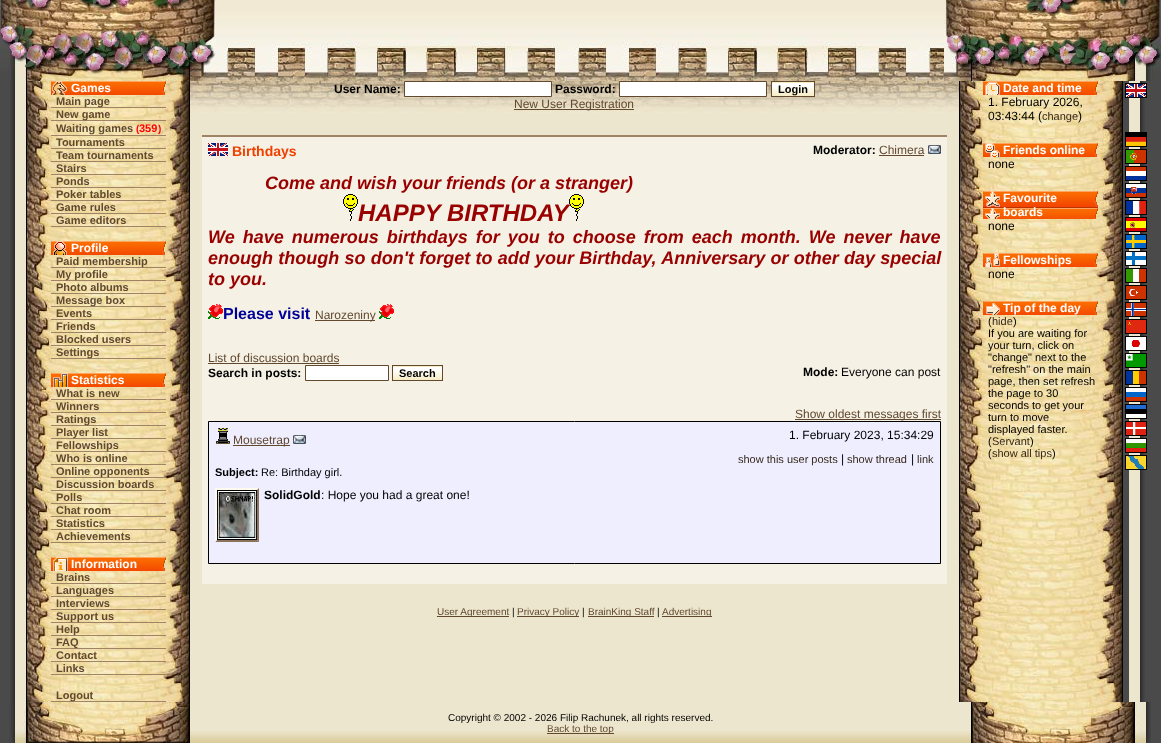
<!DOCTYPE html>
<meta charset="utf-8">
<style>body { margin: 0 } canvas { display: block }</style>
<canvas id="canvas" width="1161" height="743"></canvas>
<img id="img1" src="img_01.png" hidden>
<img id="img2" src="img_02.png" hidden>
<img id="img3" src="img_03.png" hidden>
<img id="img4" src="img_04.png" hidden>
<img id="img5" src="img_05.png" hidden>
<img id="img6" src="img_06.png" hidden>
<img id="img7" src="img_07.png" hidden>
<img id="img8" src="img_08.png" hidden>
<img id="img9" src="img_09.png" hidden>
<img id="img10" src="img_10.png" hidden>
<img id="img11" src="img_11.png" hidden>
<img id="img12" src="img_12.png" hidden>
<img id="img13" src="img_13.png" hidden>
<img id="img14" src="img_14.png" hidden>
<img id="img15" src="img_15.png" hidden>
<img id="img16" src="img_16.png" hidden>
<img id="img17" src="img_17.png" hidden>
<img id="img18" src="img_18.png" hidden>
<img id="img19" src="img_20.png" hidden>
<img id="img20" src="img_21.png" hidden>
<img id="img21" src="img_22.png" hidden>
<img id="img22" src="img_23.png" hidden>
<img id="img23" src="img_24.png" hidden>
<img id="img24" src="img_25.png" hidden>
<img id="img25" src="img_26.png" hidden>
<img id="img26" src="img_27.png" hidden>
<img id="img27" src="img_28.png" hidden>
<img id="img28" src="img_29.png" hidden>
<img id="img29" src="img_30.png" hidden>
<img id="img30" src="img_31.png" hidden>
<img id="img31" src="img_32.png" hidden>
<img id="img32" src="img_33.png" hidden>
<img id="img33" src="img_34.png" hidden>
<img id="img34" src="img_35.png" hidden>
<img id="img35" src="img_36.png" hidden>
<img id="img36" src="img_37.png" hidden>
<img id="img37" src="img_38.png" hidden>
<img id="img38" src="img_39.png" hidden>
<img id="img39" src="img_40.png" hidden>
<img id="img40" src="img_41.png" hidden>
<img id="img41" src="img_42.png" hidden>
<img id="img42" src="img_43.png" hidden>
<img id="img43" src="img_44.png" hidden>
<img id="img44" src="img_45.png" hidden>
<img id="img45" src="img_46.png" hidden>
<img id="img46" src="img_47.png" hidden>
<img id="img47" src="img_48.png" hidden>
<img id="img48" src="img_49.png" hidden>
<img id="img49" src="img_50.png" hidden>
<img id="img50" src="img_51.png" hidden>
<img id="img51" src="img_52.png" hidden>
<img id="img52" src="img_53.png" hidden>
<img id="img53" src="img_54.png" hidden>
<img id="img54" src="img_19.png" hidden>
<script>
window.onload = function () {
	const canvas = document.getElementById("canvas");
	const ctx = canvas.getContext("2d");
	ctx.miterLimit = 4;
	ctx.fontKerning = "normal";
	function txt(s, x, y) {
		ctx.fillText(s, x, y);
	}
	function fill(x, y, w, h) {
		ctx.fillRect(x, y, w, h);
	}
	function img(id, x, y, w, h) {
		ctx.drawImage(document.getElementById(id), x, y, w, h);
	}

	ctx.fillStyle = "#4A4A4A";
	fill(0, 0, 1161, 743);
	img("img1", 0, 0, 51, 81);
	img("img2", 51, 0, 117, 81);
	img("img3", 168, 0, 48, 81);
	img("img4", 216, 0, 728, 81);
	img("img5", 944, 0, 51, 81);
	img("img6", 995, 0, 118, 81);
	img("img7", 1113, 0, 48, 81);
	img("img8", 10, 81, 16, 621);
	img("img9", 26, 81, 164, 621);
	img("img10", 51, 81, 115, 14);
	ctx.fillStyle = "#A08364";
	fill(51, 107, 115, 1);
	fill(51, 120, 115, 1);
	fill(51, 135, 115, 1);
	fill(51, 148, 115, 1);
	fill(51, 161, 115, 1);
	fill(51, 174, 115, 1);
	fill(51, 187, 115, 1);
	fill(51, 200, 115, 1);
	fill(51, 213, 115, 1);
	fill(51, 226, 115, 1);
	img("img11", 51, 241, 115, 14);
	fill(51, 267, 115, 1);
	fill(51, 280, 115, 1);
	fill(51, 293, 115, 1);
	fill(51, 306, 115, 1);
	fill(51, 319, 115, 1);
	fill(51, 332, 115, 1);
	fill(51, 345, 115, 1);
	fill(51, 358, 115, 1);
	img("img12", 51, 373, 115, 14);
	fill(51, 399, 115, 1);
	fill(51, 412, 115, 1);
	fill(51, 425, 115, 1);
	fill(51, 438, 115, 1);
	fill(51, 451, 115, 1);
	fill(51, 464, 115, 1);
	fill(51, 477, 115, 1);
	fill(51, 490, 115, 1);
	fill(51, 503, 115, 1);
	fill(51, 516, 115, 1);
	fill(51, 529, 115, 1);
	fill(51, 542, 115, 1);
	img("img13", 51, 557, 115, 14);
	fill(51, 583, 115, 1);
	fill(51, 596, 115, 1);
	fill(51, 609, 115, 1);
	fill(51, 622, 115, 1);
	fill(51, 635, 115, 1);
	fill(51, 648, 115, 1);
	fill(51, 661, 115, 1);
	fill(51, 674, 115, 1);
	fill(51, 701, 115, 1);
	ctx.fillStyle = "#EDE6CE";
	fill(190, 113, 769, 589);
	img("img14", 190, 81, 769, 32);
	ctx.fillStyle = "#FFFFFF";
	ctx.beginPath();
	ctx.rect(404.5, 81.5, 147, 15);
	ctx.fill();
	ctx.strokeStyle = "#614930";
	ctx.stroke();
	ctx.beginPath();
	ctx.rect(619.5, 81.5, 147, 15);
	ctx.fill();
	ctx.stroke();
	ctx.fillStyle = "#F6ECC2";
	fill(772, 82, 42, 1);
	img("img15", 772, 83, 42, 13);
	ctx.strokeRect(771.5, 81.5, 43, 15);
	ctx.fillStyle = "#614930";
	fill(514, 109, 120, 1);
	ctx.fillStyle = "#F5F1E4";
	fill(202, 137, 745, 447);
	ctx.fillStyle = "#A08364";
	fill(202, 135, 745, 2);
	img("img16", 208, 143, 20, 13);
	ctx.fillStyle = "#614930";
	fill(879, 155, 45, 1);
	img("img17", 928, 145, 13, 9);
	img("img18", 343, 194, 15, 27);
	img("img19", 208, 304, 15, 15);
	fill(315, 320, 60, 1);
	img("img19", 379, 304, 15, 15);
	fill(208, 363, 131, 1);
	ctx.fillStyle = "#FFFFFF";
	ctx.beginPath();
	ctx.rect(305.5, 365.5, 83, 15);
	ctx.fill();
	ctx.stroke();
	ctx.fillStyle = "#F6ECC2";
	fill(393, 366, 49, 1);
	img("img20", 393, 367, 49, 13);
	ctx.strokeRect(392.5, 365.5, 50, 15);
	ctx.fillStyle = "#614930";
	fill(795, 419, 146, 1);
	ctx.fillStyle = "#EEEEFF";
	ctx.beginPath();
	ctx.rect(208.5, 421.5, 732, 142);
	ctx.fill();
	ctx.strokeStyle = "#000000";
	ctx.stroke();
	img("img21", 216, 428, 14, 16);
	ctx.fillStyle = "#614930";
	fill(233, 445, 57, 1);
	img("img17", 293, 435, 13, 9);
	ctx.fillStyle = "#FFFAEE";
	ctx.beginPath();
	ctx.moveTo(215, 488);
	ctx.lineTo(259, 488);
	ctx.lineTo(257, 490);
	ctx.lineTo(217, 490);
	ctx.closePath();
	ctx.fill();
	ctx.fillStyle = "#8B735C";
	ctx.beginPath();
	ctx.moveTo(259, 488);
	ctx.lineTo(259, 542);
	ctx.lineTo(257, 540);
	ctx.lineTo(257, 490);
	ctx.closePath();
	ctx.fill();
	ctx.beginPath();
	ctx.moveTo(259, 542);
	ctx.lineTo(215, 542);
	ctx.lineTo(217, 540);
	ctx.lineTo(257, 540);
	ctx.closePath();
	ctx.fill();
	ctx.fillStyle = "#FFFAEE";
	ctx.beginPath();
	ctx.moveTo(215, 542);
	ctx.lineTo(215, 488);
	ctx.lineTo(217, 490);
	ctx.lineTo(217, 540);
	ctx.closePath();
	ctx.fill();
	img("img22", 217, 490, 40, 50);
	ctx.fillStyle = "#614930";
	fill(437, 616, 72, 1);
	fill(517, 616, 62, 1);
	fill(588, 616, 66, 1);
	fill(662, 616, 50, 1);
	img("img9", 959, 81, 164, 621);
	img("img23", 983, 81, 115, 14);
	img("img24", 983, 143, 115, 14);
	img("img25", 983, 191, 115, 28);
	img("img26", 983, 253, 115, 14);
	img("img27", 983, 301, 115, 14);
	img("img28", 1129, 81, 16, 621);
	ctx.strokeRect(1125.5, 83.5, 21, 14);
	img("img16", 1126, 84, 20, 13);
	ctx.strokeRect(1125.5, 132.5, 21, 14);
	img("img29", 1126, 133, 20, 13);
	ctx.strokeRect(1125.5, 149.5, 21, 14);
	img("img30", 1126, 150, 20, 13);
	ctx.strokeRect(1125.5, 166.5, 21, 14);
	img("img31", 1126, 167, 20, 13);
	ctx.strokeRect(1125.5, 183.5, 21, 14);
	img("img32", 1126, 184, 20, 13);
	ctx.strokeRect(1125.5, 200.5, 21, 14);
	img("img33", 1126, 201, 20, 13);
	ctx.strokeRect(1125.5, 217.5, 21, 14);
	img("img34", 1126, 218, 20, 13);
	ctx.strokeRect(1125.5, 234.5, 21, 14);
	img("img35", 1126, 235, 20, 13);
	ctx.strokeRect(1125.5, 251.5, 21, 14);
	img("img36", 1126, 252, 20, 13);
	ctx.strokeRect(1125.5, 268.5, 21, 14);
	img("img37", 1126, 269, 20, 13);
	ctx.strokeRect(1125.5, 285.5, 21, 14);
	img("img38", 1126, 286, 20, 13);
	ctx.strokeRect(1125.5, 302.5, 21, 14);
	img("img39", 1126, 303, 20, 13);
	ctx.strokeRect(1125.5, 319.5, 21, 14);
	img("img40", 1126, 320, 20, 13);
	ctx.strokeRect(1125.5, 336.5, 21, 14);
	img("img41", 1126, 337, 20, 13);
	ctx.strokeRect(1125.5, 353.5, 21, 14);
	img("img42", 1126, 354, 20, 13);
	ctx.strokeRect(1125.5, 370.5, 21, 14);
	img("img43", 1126, 371, 20, 13);
	ctx.strokeRect(1125.5, 387.5, 21, 14);
	img("img44", 1126, 388, 20, 13);
	ctx.strokeRect(1125.5, 404.5, 21, 14);
	img("img45", 1126, 405, 20, 13);
	ctx.strokeRect(1125.5, 421.5, 21, 14);
	img("img46", 1126, 422, 20, 13);
	ctx.strokeRect(1125.5, 438.5, 21, 14);
	img("img47", 1126, 439, 20, 13);
	ctx.strokeRect(1125.5, 455.5, 21, 14);
	img("img48", 1126, 456, 20, 13);
	img("img49", 9, 702, 6, 41);
	img("img50", 15, 702, 175, 41);
	ctx.fillStyle = "#EDE6CE";
	fill(190, 702, 781, 29);
	img("img51", 190, 731, 781, 12);
	ctx.fillStyle = "#614930";
	fill(547, 733, 67, 1);
	img("img52", 971, 702, 175, 41);
	img("img53", 1146, 702, 5, 41);
	ctx.font = "bold 12px Liberation Sans";
	ctx.fillStyle = "#FFFFFF";
	txt("Games", 71, 92);
	ctx.font = "bold 11px Liberation Sans";
	ctx.fillStyle = "#614930";
	txt("Main page", 56, 105);
	txt("New game", 56, 118);
	txt("Waiting games", 56, 132);
	ctx.font = "bold 10px Liberation Sans";
	ctx.fillStyle = "#FF0000";
	txt("(", 136, 132);
	ctx.font = "bold 11px Liberation Sans";
	txt("359", 139, 132);
	ctx.font = "bold 10px Liberation Sans";
	txt(")", 158, 132);
	ctx.font = "bold 11px Liberation Sans";
	ctx.fillStyle = "#614930";
	txt("Tournaments", 56, 146);
	txt("Team tournaments", 56, 159);
	txt("Stairs", 56, 172);
	txt("Ponds", 56, 185);
	txt("Poker tables", 56, 198);
	txt("Game rules", 56, 211);
	txt("Game editors", 56, 224);
	ctx.font = "bold 12px Liberation Sans";
	ctx.fillStyle = "#FFFFFF";
	txt("Profile", 71, 252);
	ctx.font = "bold 11px Liberation Sans";
	ctx.fillStyle = "#614930";
	txt("Paid membership", 56, 265);
	txt("My profile", 56, 278);
	txt("Photo albums", 56, 291);
	txt("Message box", 56, 304);
	txt("Events", 56, 317);
	txt("Friends", 56, 330);
	txt("Blocked users", 56, 343);
	txt("Settings", 56, 356);
	ctx.font = "bold 12px Liberation Sans";
	ctx.fillStyle = "#FFFFFF";
	txt("Statistics", 71, 384);
	ctx.font = "bold 11px Liberation Sans";
	ctx.fillStyle = "#614930";
	txt("What is new", 56, 397);
	txt("Winners", 56, 410);
	txt("Ratings", 56, 423);
	txt("Player list", 56, 436);
	txt("Fellowships", 56, 449);
	txt("Who is online", 56, 462);
	txt("Online opponents", 56, 475);
	txt("Discussion boards", 56, 488);
	txt("Polls", 56, 501);
	txt("Chat room", 56, 514);
	txt("Statistics", 56, 527);
	txt("Achievements", 56, 540);
	ctx.font = "bold 12px Liberation Sans";
	ctx.fillStyle = "#FFFFFF";
	txt("Information", 71, 568);
	ctx.font = "bold 11px Liberation Sans";
	ctx.fillStyle = "#614930";
	txt("Brains", 56, 581);
	txt("Languages", 56, 594);
	txt("Interviews", 56, 607);
	txt("Support us", 56, 620);
	txt("Help", 56, 633);
	txt("FAQ", 56, 646);
	txt("Contact", 56, 659);
	txt("Links", 56, 672);
	txt("Logout", 56, 699);
	ctx.font = "bold 12px Liberation Sans";
	ctx.fillStyle = "#000000";
	txt("User Name:", 334, 93);
	txt("Password:", 555, 93);
	ctx.font = "bold 11px Liberation Sans";
	txt("Login", 778, 93);
	ctx.font = "12px Liberation Sans";
	ctx.fillStyle = "#614930";
	txt("New User Registration", 514, 108);
	ctx.font = "bold 14px Liberation Sans";
	ctx.fillStyle = "#EF4000";
	txt("Birthdays", 232, 156);
	ctx.font = "bold 12px Liberation Sans";
	ctx.fillStyle = "#000000";
	txt("Moderator:", 813, 154);
	ctx.font = "12px Liberation Sans";
	ctx.fillStyle = "#614930";
	txt("Chimera", 879, 154);
	ctx.font = "italic bold 18px Liberation Sans";
	ctx.fillStyle = "#990000";
	txt("Come and wish your friends (or a stranger)", 265, 189);
	ctx.font = "italic bold 24px Liberation Sans";
	txt("HAPPY BIRTHDAY", 358, 221);
	img("img54", 569, 194, 15, 27);
	ctx.wordSpacing = "3px";
	ctx.font = "italic bold 18px Liberation Sans";
	txt("We have numerous birthdays for you to choose from each month. We never have", 208, 243);
	ctx.wordSpacing = "0.25px";
	txt("enough though so don't forget to add your Birthday, Anniversary or other day special", 208, 264);
	ctx.wordSpacing = "0px";
	txt("to you.", 208, 285);
	ctx.font = "bold 16px Liberation Sans";
	ctx.fillStyle = "#000099";
	txt("Please visit", 223, 319);
	ctx.font = "12px Liberation Sans";
	ctx.fillStyle = "#614930";
	txt("Narozeniny", 315, 319);
	txt("List of discussion boards", 208, 362);
	ctx.font = "bold 12px Liberation Sans";
	ctx.fillStyle = "#000000";
	txt("Search in posts:", 208, 377);
	ctx.font = "bold 11px Liberation Sans";
	txt("Search", 399, 377);
	ctx.font = "bold 12px Liberation Sans";
	txt("Mode:", 803, 376);
	ctx.font = "12px Liberation Sans";
	txt("Everyone can post", 841, 376);
	ctx.fillStyle = "#614930";
	txt("Show oldest messages first", 795, 418);
	txt("Mousetrap", 233, 444);
	ctx.fillStyle = "#000000";
	txt("1. February 2023, 15:34:29", 789, 439);
	ctx.font = "11px Liberation Sans";
	ctx.fillStyle = "#36281B";
	txt("show this user posts", 738, 463);
	ctx.font = "12px Liberation Sans";
	ctx.fillStyle = "#000000";
	txt("|", 841, 463);
	ctx.font = "11px Liberation Sans";
	ctx.fillStyle = "#36281B";
	txt("show thread", 847, 463);
	ctx.font = "12px Liberation Sans";
	ctx.fillStyle = "#000000";
	txt("|", 911, 463);
	ctx.font = "11px Liberation Sans";
	ctx.fillStyle = "#36281B";
	txt("link", 917, 463);
	ctx.font = "bold 11px Liberation Sans";
	ctx.fillStyle = "#000000";
	txt("Subject:", 215, 476);
	ctx.font = "11px Liberation Sans";
	txt("Re: Birthday girl.", 261, 476);
	ctx.font = "bold 12px Liberation Sans";
	txt("SolidGold", 264, 499);
	ctx.font = "12px Liberation Sans";
	txt(": Hope you had a great one!", 321, 499);
	ctx.font = "10px Liberation Sans";
	ctx.fillStyle = "#614930";
	txt("User Agreement", 437, 615);
	ctx.fillStyle = "#000000";
	txt("|", 512, 615);
	ctx.fillStyle = "#614930";
	txt("Privacy Policy", 517, 615);
	ctx.fillStyle = "#000000";
	txt("|", 582, 615);
	ctx.fillStyle = "#614930";
	txt("BrainKing Staff", 588, 615);
	ctx.fillStyle = "#000000";
	txt("|", 657, 615);
	ctx.fillStyle = "#614930";
	txt("Advertising", 662, 615);
	ctx.font = "bold 12px Liberation Sans";
	ctx.fillStyle = "#FFFFFF";
	txt("Date and time", 1003, 92);
	ctx.font = "12px Liberation Sans";
	ctx.fillStyle = "#000000";
	txt("1. February 2026,", 988, 106);
	txt("03:43:44 (", 988, 120);
	ctx.font = "11px Liberation Sans";
	ctx.fillStyle = "#36281B";
	txt("change", 1042, 120);
	ctx.font = "12px Liberation Sans";
	ctx.fillStyle = "#000000";
	txt(")", 1078, 120);
	ctx.font = "bold 12px Liberation Sans";
	ctx.fillStyle = "#FFFFFF";
	txt("Friends online", 1003, 154);
	ctx.font = "12px Liberation Sans";
	ctx.fillStyle = "#000000";
	txt("none", 988, 168);
	ctx.font = "bold 12px Liberation Sans";
	ctx.fillStyle = "#FFFFFF";
	txt("Favourite", 1003, 202);
	txt("boards", 1003, 216);
	ctx.font = "12px Liberation Sans";
	ctx.fillStyle = "#000000";
	txt("none", 988, 230);
	ctx.font = "bold 12px Liberation Sans";
	ctx.fillStyle = "#FFFFFF";
	txt("Fellowships", 1003, 264);
	ctx.font = "12px Liberation Sans";
	ctx.fillStyle = "#000000";
	txt("none", 988, 278);
	ctx.font = "bold 12px Liberation Sans";
	ctx.fillStyle = "#FFFFFF";
	txt("Tip of the day", 1003, 312);
	ctx.font = "11px Liberation Sans";
	ctx.fillStyle = "#000000";
	txt("(", 988, 325);
	ctx.fillStyle = "#36281B";
	txt("hide", 992, 325);
	ctx.fillStyle = "#000000";
	txt(")", 1013, 325);
	txt("If you are waiting for", 988, 337);
	txt("your turn, click on", 988, 349);
	txt("\"change\" next to the", 988, 361);
	txt("\"refresh\" on the main", 988, 373);
	txt("page, then set refresh", 988, 385);
	txt("the page to 30", 988, 397);
	txt("seconds to get your", 988, 409);
	txt("turn to move", 988, 421);
	txt("displayed faster.", 988, 433);
	txt("(", 988, 445);
	ctx.fillStyle = "#36281B";
	txt("Servant", 992, 445);
	ctx.fillStyle = "#000000";
	txt(")", 1030, 445);
	txt("(", 988, 457);
	ctx.fillStyle = "#36281B";
	txt("show all tips", 992, 457);
	ctx.fillStyle = "#000000";
	txt(")", 1052, 457);
	ctx.font = "10px Liberation Sans";
	txt("Copyright © 2002 - 2026 Filip Rachunek, all rights reserved.", 448, 721);
	ctx.fillStyle = "#614930";
	txt("Back to the top", 547, 732);
};
</script>
